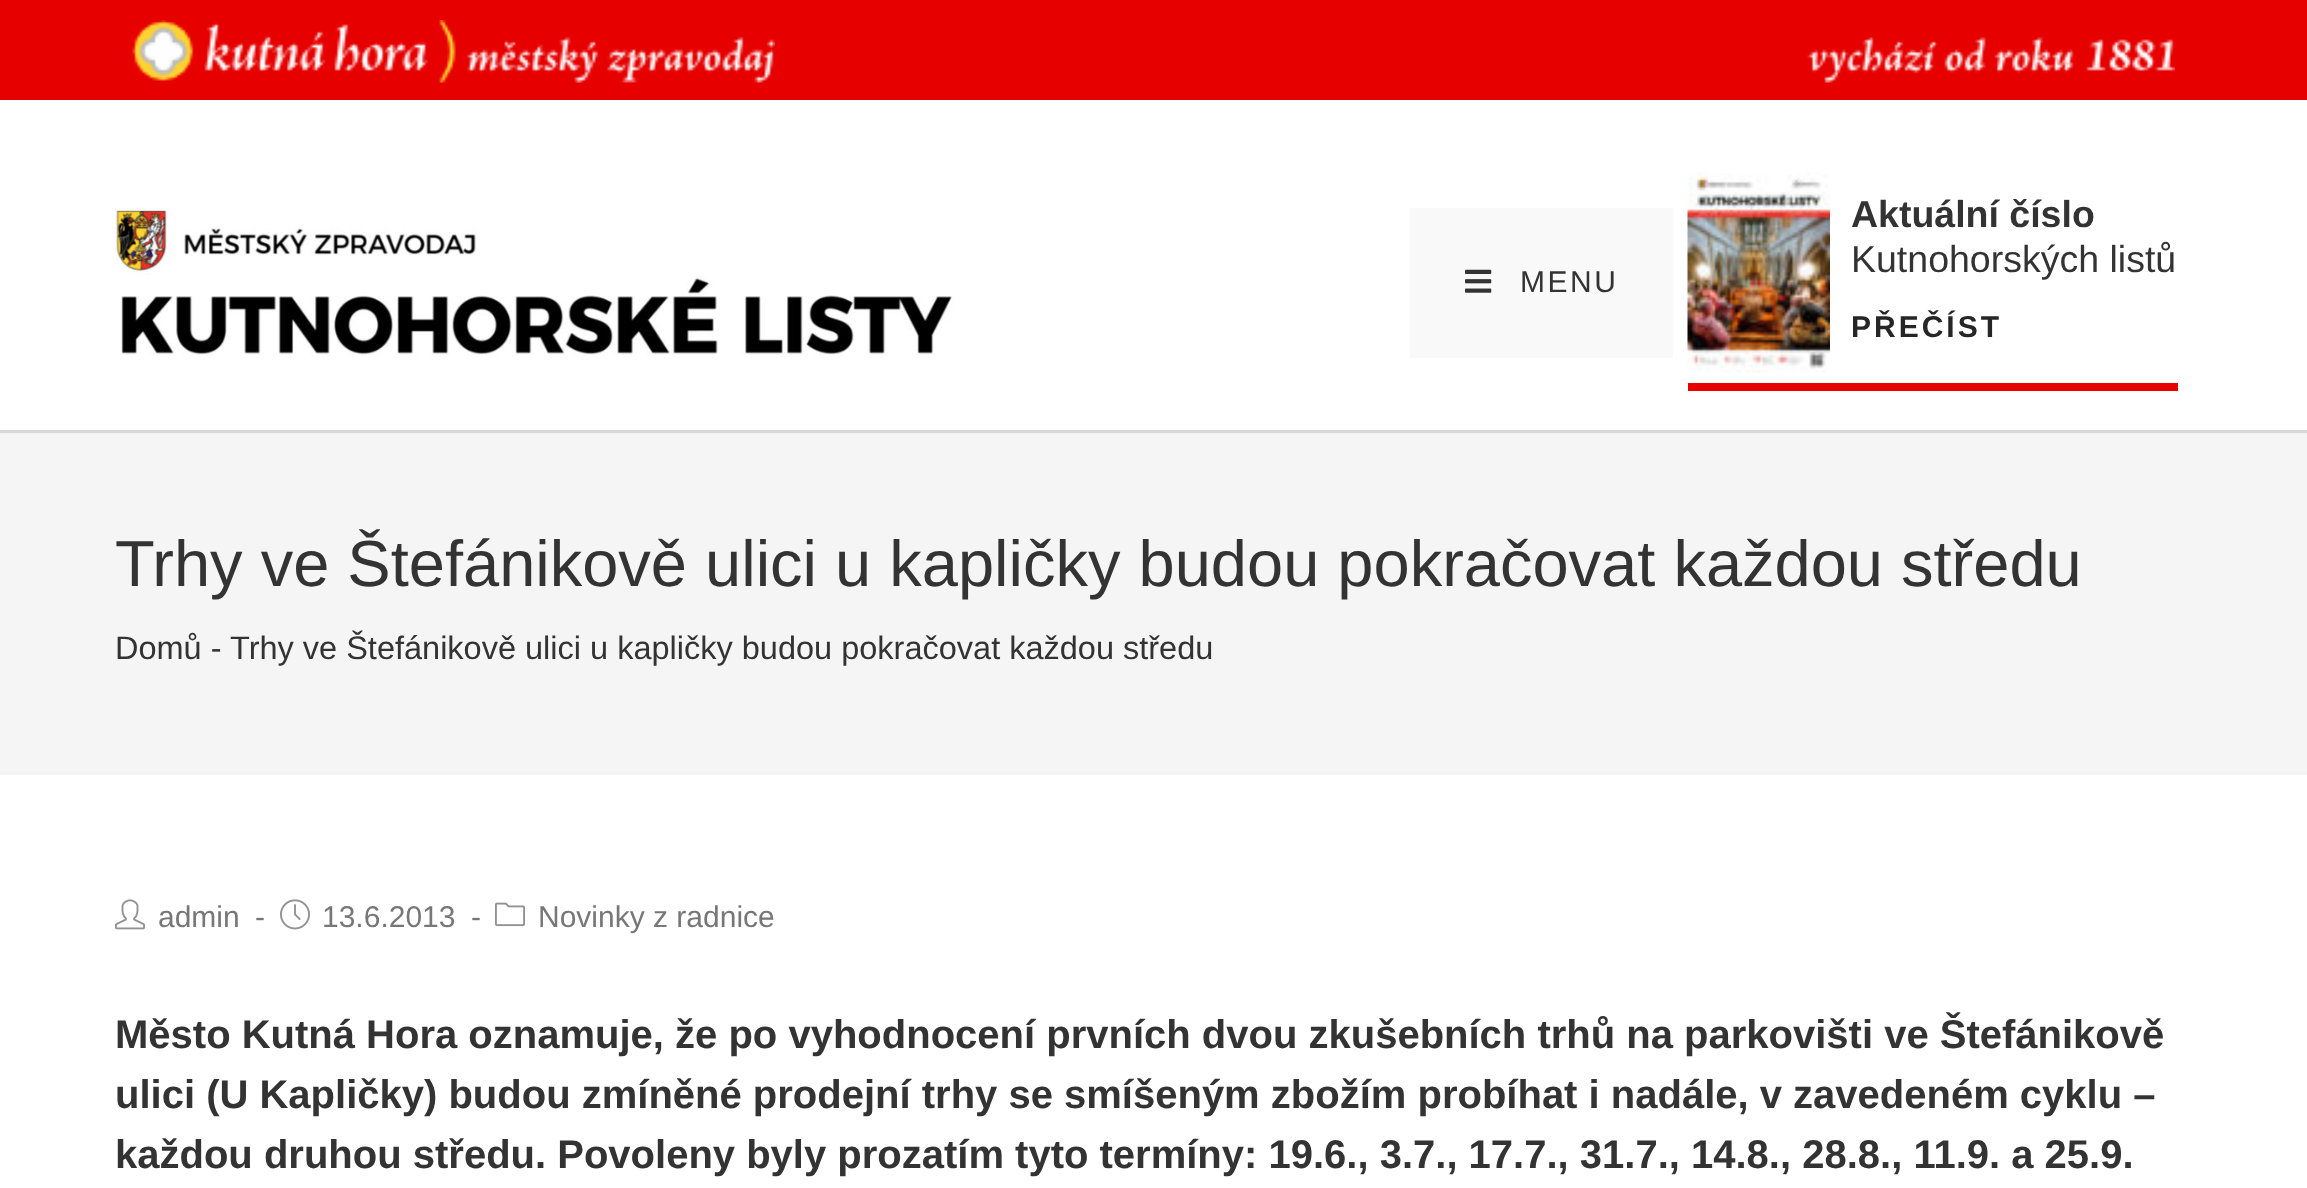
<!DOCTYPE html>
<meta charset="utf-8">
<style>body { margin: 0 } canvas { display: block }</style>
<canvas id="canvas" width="2307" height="1188"></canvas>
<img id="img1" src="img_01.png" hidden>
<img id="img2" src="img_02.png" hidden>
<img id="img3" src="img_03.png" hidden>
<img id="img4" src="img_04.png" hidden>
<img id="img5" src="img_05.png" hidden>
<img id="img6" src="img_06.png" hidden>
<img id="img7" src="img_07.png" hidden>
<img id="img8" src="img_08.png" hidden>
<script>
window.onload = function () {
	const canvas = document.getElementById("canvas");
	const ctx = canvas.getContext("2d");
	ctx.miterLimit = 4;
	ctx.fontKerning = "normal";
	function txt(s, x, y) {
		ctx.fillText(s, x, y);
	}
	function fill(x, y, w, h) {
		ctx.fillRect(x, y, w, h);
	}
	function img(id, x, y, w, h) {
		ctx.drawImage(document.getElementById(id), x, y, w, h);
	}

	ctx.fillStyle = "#FFFFFF";
	fill(0, 0, 2307, 1188);
	ctx.fillStyle = "#E60000";
	fill(0, 0, 2307, 100);
	img("img1", 132, 20, 643, 63);
	img("img2", 1807, 37, 368, 46);
	ctx.fillStyle = "#D6D6D6";
	fill(0, 430, 2307, 3);
	img("img3", 115, 207, 839, 150);
	ctx.fillStyle = "#F9F9F9";
	fill(1410, 208, 263, 150);
	img("img4", 1465, 269, 27, 24);
	ctx.fillStyle = "#E60000";
	fill(1688, 383, 490, 8);
	img("img5", 1687, 172, 143, 201);
	ctx.fillStyle = "#F5F5F5";
	fill(0, 433, 2307, 342);
	img("img6", 115, 899, 30, 31);
	img("img7", 280, 899, 30, 31);
	img("img8", 495, 902, 30, 25);
	ctx.letterSpacing = "2.5px";
	ctx.font = "30px Liberation Sans";
	ctx.fillStyle = "#333333";
	txt("MENU", 1520, 292);
	ctx.letterSpacing = "0px";
	ctx.font = "bold 37.5px Liberation Sans";
	txt("Aktuální číslo", 1851, 227);
	ctx.font = "37.5px Liberation Sans";
	txt("Kutnohorských listů", 1851, 272);
	ctx.letterSpacing = "3px";
	ctx.font = "bold 30px Liberation Sans";
	ctx.fillStyle = "#262626";
	txt("PŘEČÍST", 1851, 337);
	ctx.letterSpacing = "0px";
	ctx.font = "65px Liberation Sans";
	ctx.fillStyle = "#333333";
	txt("Trhy ve Štefánikově ulici u kapličky budou pokračovat každou středu", 115, 586);
	ctx.font = "32.5px Liberation Sans";
	txt("Domů -", 115, 659);
	txt("Trhy ve Štefánikově ulici u kapličky budou pokračovat každou středu", 230, 659);
	ctx.font = "30px Liberation Sans";
	ctx.fillStyle = "#777777";
	txt("admin", 158, 927);
	txt("-", 255, 927);
	txt("13.6.2013", 322, 927);
	txt("-", 471, 927);
	txt("Novinky z radnice", 538, 927);
	ctx.font = "bold 40px Liberation Sans";
	ctx.fillStyle = "#333333";
	txt("Město Kutná Hora oznamuje, že po vyhodnocení prvních dvou zkušebních trhů na parkovišti ve Štefánikově", 115, 1048);
	txt("ulici (U Kapličky) budou zmíněné prodejní trhy se smíšeným zbožím probíhat i nadále, v zavedeném cyklu –", 115, 1108);
	txt("každou druhou středu. Povoleny byly prozatím tyto termíny: 19.6., 3.7., 17.7., 31.7., 14.8., 28.8., 11.9. a 25.9.", 115, 1168);
};
</script>
